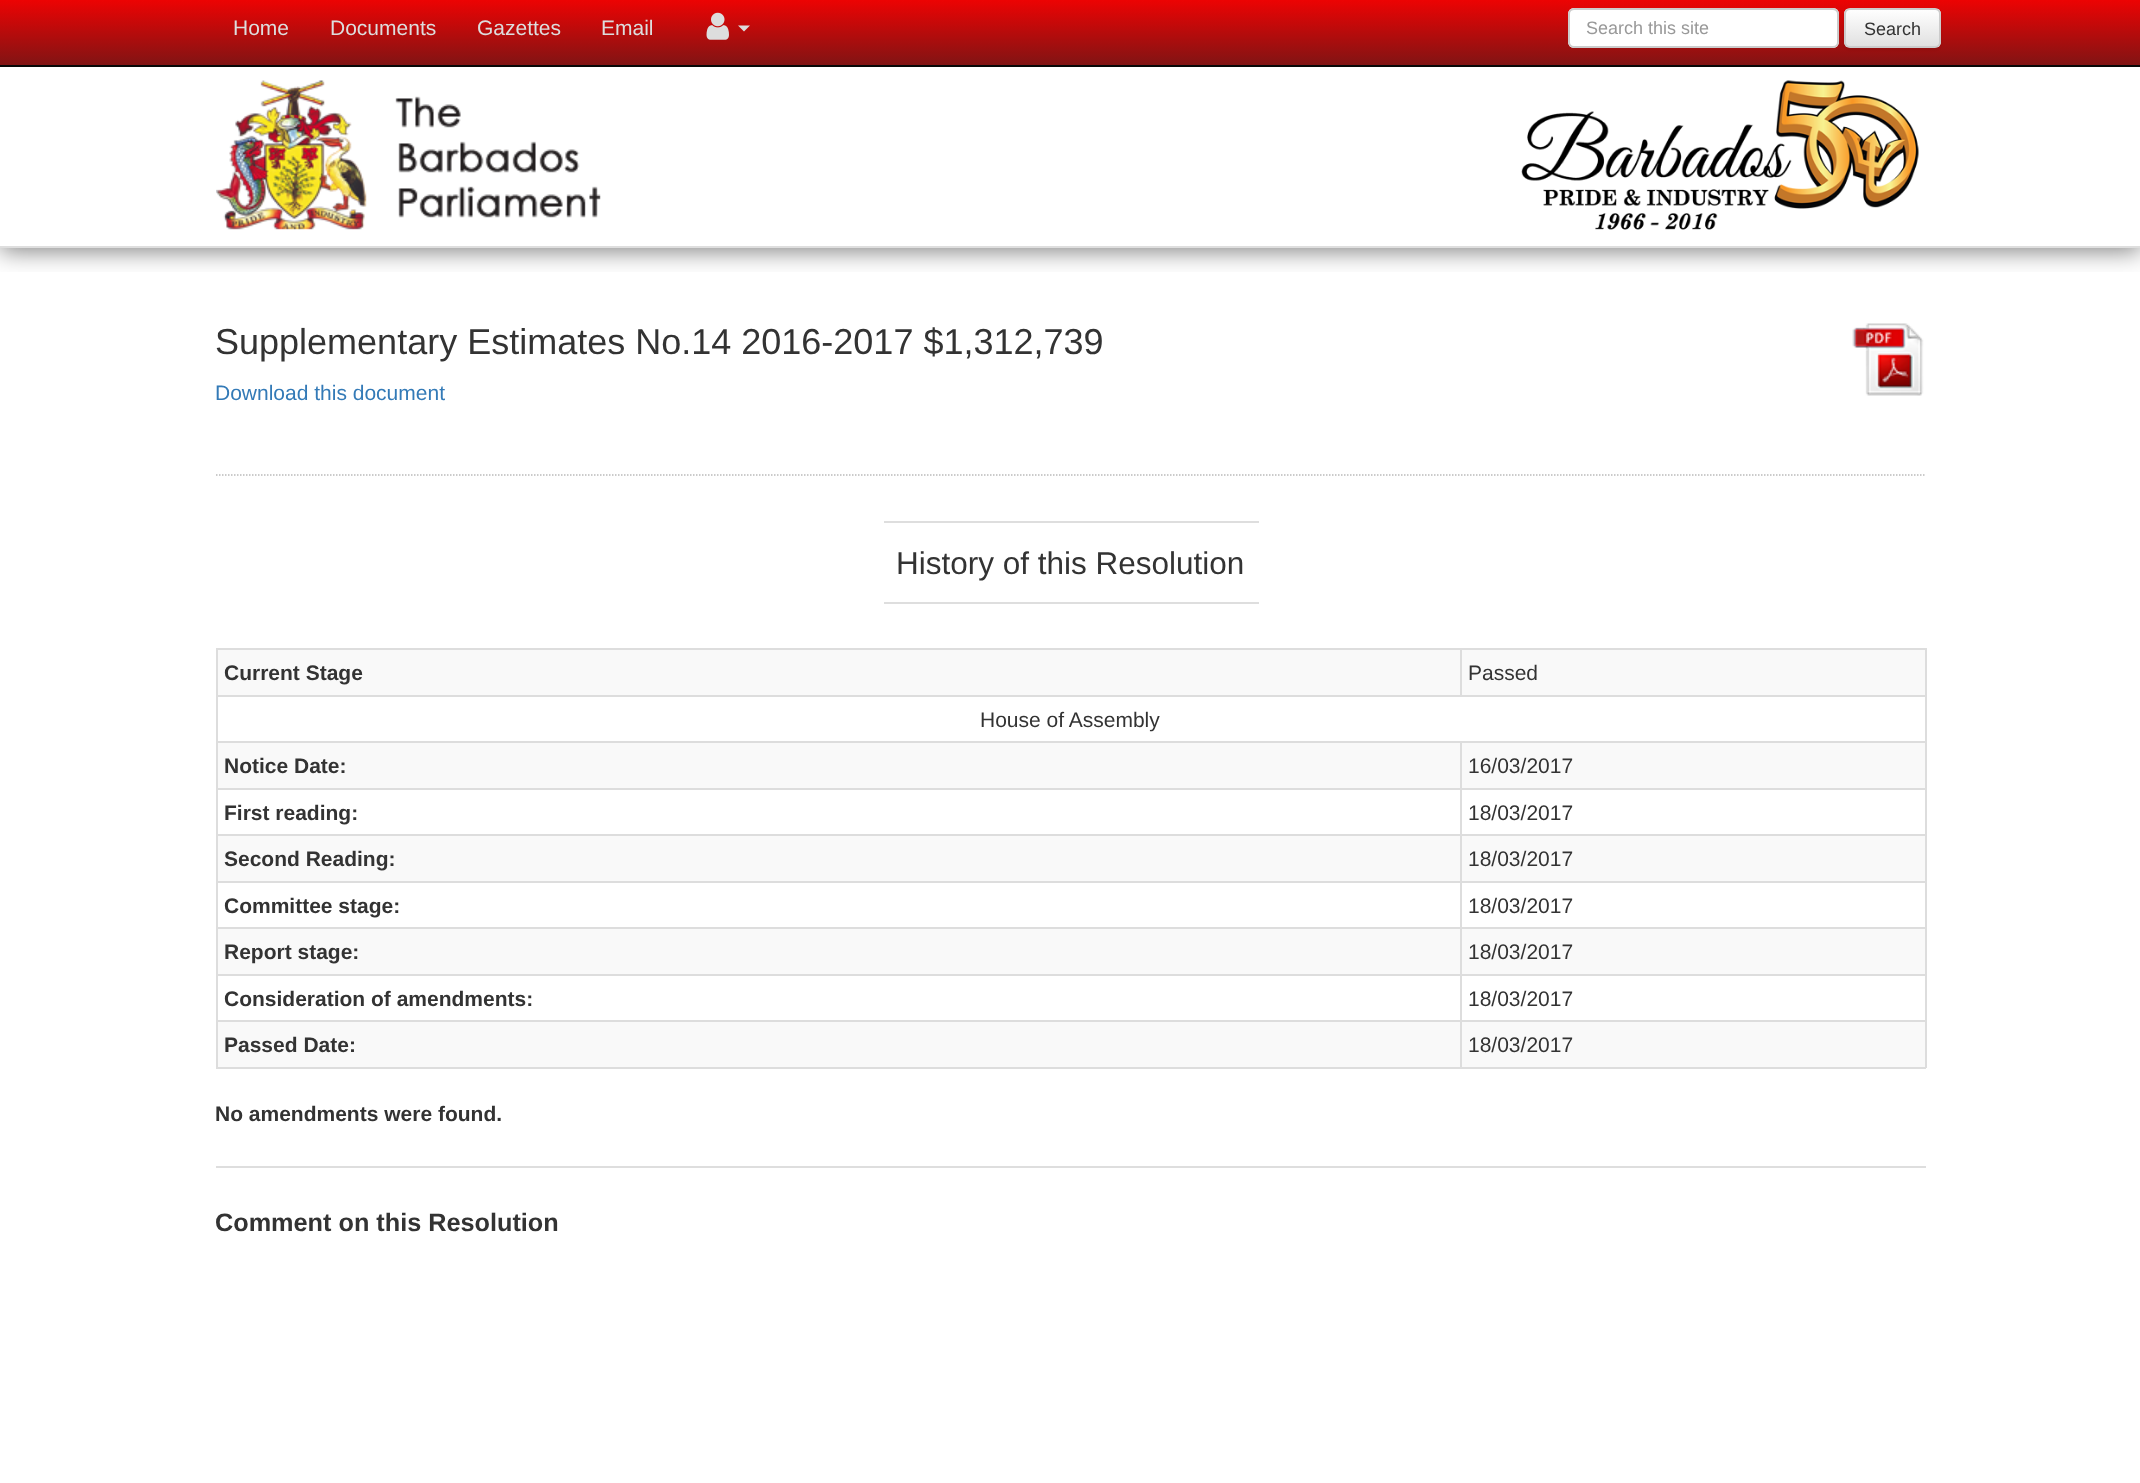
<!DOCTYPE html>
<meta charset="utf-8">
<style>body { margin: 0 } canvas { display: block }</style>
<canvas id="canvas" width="2140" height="1483"></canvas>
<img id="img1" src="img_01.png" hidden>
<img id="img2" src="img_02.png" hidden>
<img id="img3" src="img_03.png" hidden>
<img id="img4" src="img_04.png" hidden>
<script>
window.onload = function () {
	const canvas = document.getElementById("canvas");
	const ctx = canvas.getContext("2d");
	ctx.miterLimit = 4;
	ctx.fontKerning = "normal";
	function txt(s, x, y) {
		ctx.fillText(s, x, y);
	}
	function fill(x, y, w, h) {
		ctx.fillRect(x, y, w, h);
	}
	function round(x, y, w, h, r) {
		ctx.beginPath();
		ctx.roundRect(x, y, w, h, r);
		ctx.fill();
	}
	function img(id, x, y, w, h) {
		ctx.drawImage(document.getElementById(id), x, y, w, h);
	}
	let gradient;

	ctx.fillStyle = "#FFFFFF";
	fill(0, 0, 2140, 1483);
	ctx.save();
	ctx.beginPath();
	ctx.rect(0, 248, 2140, 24);
	ctx.clip();
	ctx.fillStyle = "rgba(0, 0, 0, 0.5)";
	ctx.filter = "blur(12px)";
	ctx.beginPath();
	ctx.rect(0, -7, 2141, 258);
	ctx.fill();
	ctx.filter = "none";
	ctx.restore();
	ctx.fillStyle = "#DEDEDE";
	fill(0, 246, 2140, 2);
	gradient = ctx.createLinearGradient(1070, -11, 1070, 65);
	gradient.addColorStop(0, "#FF0000");
	gradient.addColorStop(1, "#811414");
	ctx.fillStyle = gradient;
	fill(0, 0, 2140, 65);
	ctx.fillStyle = "#080808";
	fill(0, 65, 2140, 2);
	img("img1", 706, 12, 23, 28);
	ctx.fillStyle = "#DDDDDD";
	ctx.beginPath();
	ctx.moveTo(738, 25.5);
	ctx.lineTo(750, 25.5);
	ctx.lineTo(744, 31.5);
	ctx.closePath();
	ctx.fill();
	ctx.fillStyle = "#FFFFFF";
	round(1568, 8, 271, 40, 6);
	ctx.fillStyle = "#ECECEC";
	ctx.beginPath();
	ctx.moveTo(1574, 10);
	ctx.lineTo(1833, 10);
	ctx.bezierCurveTo(1835, 10, 1838, 13, 1838, 15);
	ctx.bezierCurveTo(1838, 12, 1836, 9, 1833, 9);
	ctx.lineTo(1574, 9);
	ctx.bezierCurveTo(1571, 9, 1569, 12, 1569, 15);
	ctx.bezierCurveTo(1569, 13, 1571, 10, 1574, 10);
	ctx.closePath();
	ctx.fill();
	ctx.beginPath();
	ctx.roundRect(1569, 9, 269, 38, 5);
	ctx.strokeStyle = "#CCCCCC";
	ctx.lineWidth = 2;
	ctx.stroke();
	ctx.fillStyle = "rgba(0, 0, 0, 0.07)";
	ctx.filter = "blur(1px)";
	ctx.beginPath();
	ctx.roundRect(1844, 9, 97, 41, 6);
	ctx.fill();
	ctx.filter = "none";
	ctx.save();
	ctx.beginPath();
	ctx.roundRect(1844, 8, 97, 40, 6);
	ctx.clip();
	gradient = ctx.createLinearGradient(1892, 9, 1892, 47);
	gradient.addColorStop(0, "#FFFFFF");
	gradient.addColorStop(1, "#E0E0E0");
	ctx.fillStyle = gradient;
	fill(1844, 9, 97, 38);
	ctx.restore();
	ctx.beginPath();
	ctx.roundRect(1845, 9, 95, 38, 5);
	ctx.stroke();
	img("img2", 216, 80, 385, 150);
	img("img3", 1521, 80, 398, 150);
	img("img4", 1852, 323, 72, 73);
	ctx.beginPath();
	ctx.moveTo(216, 475);
	ctx.lineTo(1926, 475);
	ctx.strokeStyle = "#BBBBBB";
	ctx.lineWidth = 1.5;
	ctx.setLineDash([1.5, 1.5]);
	ctx.stroke();
	ctx.fillStyle = "#DEDEDE";
	fill(884, 521, 375, 2);
	fill(884, 602, 375, 2);
	ctx.fillStyle = "#DDDDDD";
	fill(216, 648, 1710, 2);
	fill(1925, 648, 2, 420);
	fill(216, 1067, 1710, 2);
	fill(216, 648, 2, 420);
	ctx.fillStyle = "#F9F9F9";
	fill(218, 650, 1707, 45);
	ctx.fillStyle = "#DDDDDD";
	fill(216, 695, 1710, 2);
	fill(1460, 648, 2, 48);
	ctx.fillStyle = "#F9F9F9";
	fill(218, 743, 1707, 45);
	ctx.fillStyle = "#DDDDDD";
	fill(1460, 741, 466, 2);
	fill(1460, 788, 466, 2);
	fill(1460, 834, 466, 2);
	ctx.fillStyle = "#F9F9F9";
	fill(218, 836, 1707, 45);
	ctx.fillStyle = "#DDDDDD";
	fill(1460, 881, 466, 2);
	fill(1460, 927, 466, 2);
	ctx.fillStyle = "#F9F9F9";
	fill(218, 929, 1707, 45);
	ctx.fillStyle = "#DDDDDD";
	fill(1460, 974, 466, 2);
	fill(1460, 1020, 466, 2);
	ctx.fillStyle = "#F9F9F9";
	fill(218, 1022, 1707, 45);
	ctx.fillStyle = "#DDDDDD";
	fill(1460, 1020, 2, 48);
	fill(216, 1020, 1245, 2);
	fill(1460, 974, 2, 48);
	fill(216, 974, 1245, 2);
	fill(1460, 927, 2, 48);
	fill(216, 927, 1245, 2);
	fill(1460, 881, 2, 48);
	fill(216, 881, 1245, 2);
	fill(1460, 834, 2, 48);
	fill(216, 834, 1245, 2);
	fill(1460, 788, 2, 48);
	fill(216, 788, 1245, 2);
	fill(1460, 741, 2, 48);
	fill(216, 741, 1245, 2);
	ctx.fillStyle = "#DEDEDE";
	fill(216, 1166, 1710, 2);
	ctx.font = "21px Liberation Sans";
	ctx.fillStyle = "#DDDDDD";
	txt("Home", 233, 35);
	txt("Documents", 330, 35);
	txt("Gazettes", 477, 35);
	txt("Email", 601, 35);
	ctx.font = "18px Liberation Sans";
	ctx.fillStyle = "#999999";
	txt("Search this site", 1586, 34);
	ctx.fillStyle = "#333333";
	txt("Search", 1864, 35);
	ctx.font = "36px Liberation Sans";
	txt("Supplementary Estimates No.14 2016-2017 $1,312,739", 215, 354);
	ctx.font = "21px Liberation Sans";
	ctx.fillStyle = "#337AB7";
	txt("Download this document", 215, 400);
	ctx.font = "31.5px Liberation Sans";
	ctx.fillStyle = "#333333";
	txt("History of this Resolution", 896, 574);
	ctx.font = "bold 21px Liberation Sans";
	txt("Current Stage", 224, 680);
	ctx.font = "21px Liberation Sans";
	txt("Passed", 1468, 680);
	txt("House of Assembly", 980, 727);
	ctx.font = "bold 21px Liberation Sans";
	txt("Notice Date:", 224, 773);
	ctx.font = "21px Liberation Sans";
	txt("16/03/2017", 1468, 773);
	ctx.font = "bold 21px Liberation Sans";
	txt("First reading:", 224, 820);
	ctx.font = "21px Liberation Sans";
	txt("18/03/2017", 1468, 820);
	ctx.font = "bold 21px Liberation Sans";
	txt("Second Reading:", 224, 866);
	ctx.font = "21px Liberation Sans";
	txt("18/03/2017", 1468, 866);
	ctx.font = "bold 21px Liberation Sans";
	txt("Committee stage:", 224, 913);
	ctx.font = "21px Liberation Sans";
	txt("18/03/2017", 1468, 913);
	ctx.font = "bold 21px Liberation Sans";
	txt("Report stage:", 224, 959);
	ctx.font = "21px Liberation Sans";
	txt("18/03/2017", 1468, 959);
	ctx.font = "bold 21px Liberation Sans";
	txt("Consideration of amendments:", 224, 1006);
	ctx.font = "21px Liberation Sans";
	txt("18/03/2017", 1468, 1006);
	ctx.font = "bold 21px Liberation Sans";
	txt("Passed Date:", 224, 1052);
	ctx.font = "21px Liberation Sans";
	txt("18/03/2017", 1468, 1052);
	ctx.font = "bold 21px Liberation Sans";
	txt("No amendments were found.", 215, 1121);
	ctx.font = "bold 25.25px Liberation Sans";
	txt("Comment on this Resolution", 215, 1231);
};
</script>
